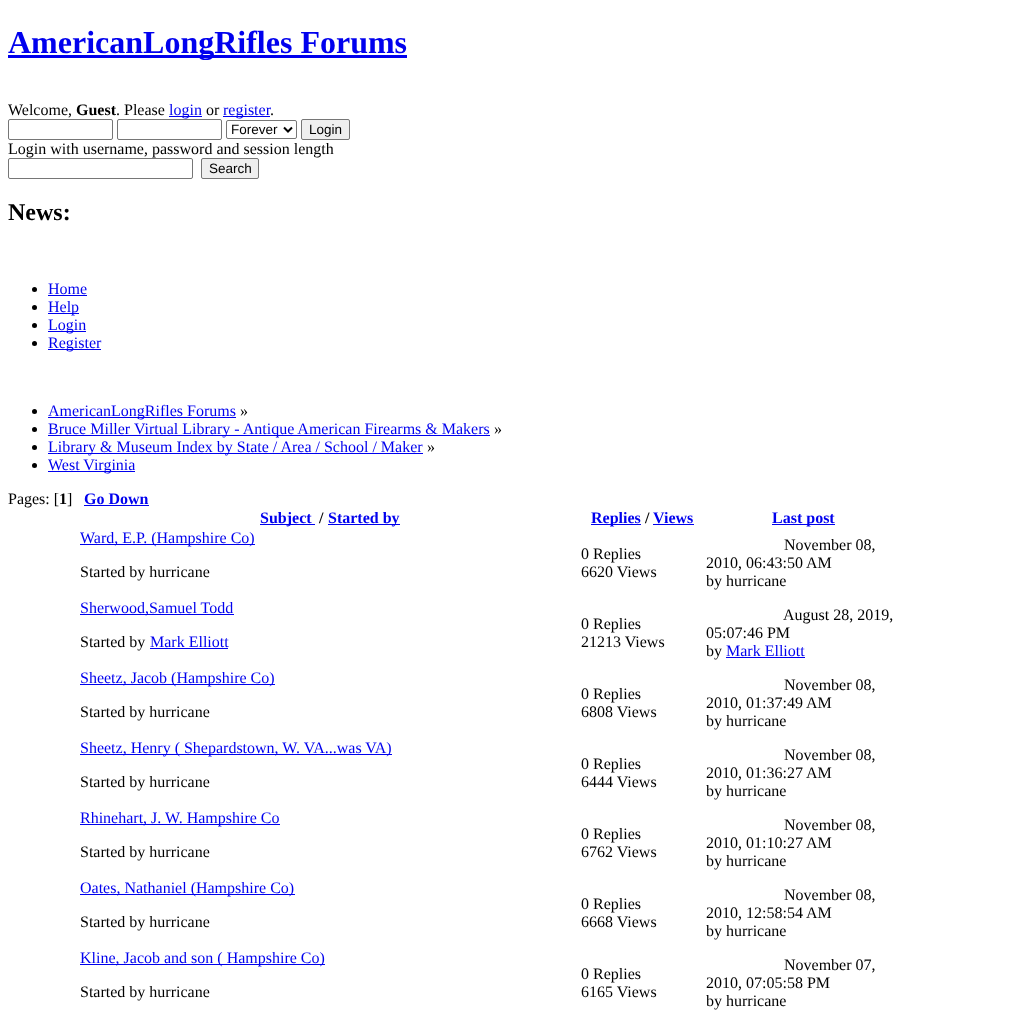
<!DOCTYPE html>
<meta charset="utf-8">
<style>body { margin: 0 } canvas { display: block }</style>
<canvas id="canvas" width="1009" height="1029"></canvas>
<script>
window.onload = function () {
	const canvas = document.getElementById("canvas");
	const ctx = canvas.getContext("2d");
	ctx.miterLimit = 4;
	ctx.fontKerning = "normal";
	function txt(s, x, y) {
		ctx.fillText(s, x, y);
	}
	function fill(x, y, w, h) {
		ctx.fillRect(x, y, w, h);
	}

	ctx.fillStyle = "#FFFFFF";
	fill(0, 0, 1009, 1029);
	ctx.fillStyle = "#0000EE";
	fill(8, 55, 399, 3);
	fill(169, 116, 33, 1);
	fill(223, 116, 47, 1);
	ctx.beginPath();
	ctx.roundRect(8.5, 119.5, 104, 20, 1.5);
	ctx.strokeStyle = "#767676";
	ctx.stroke();
	ctx.beginPath();
	ctx.roundRect(117.5, 119.5, 104, 20, 1.5);
	ctx.stroke();
	ctx.beginPath();
	ctx.roundRect(226.5, 120.5, 70, 18, 1.5);
	ctx.stroke();
	ctx.beginPath();
	ctx.moveTo(284, 127.5);
	ctx.lineTo(288, 131.5);
	ctx.lineTo(292, 127.5);
	ctx.strokeStyle = "#000000";
	ctx.lineWidth = 2;
	ctx.stroke();
	ctx.fillStyle = "#EFEFEF";
	ctx.beginPath();
	ctx.roundRect(301.5, 119.5, 48, 20, 1.5);
	ctx.fill();
	ctx.strokeStyle = "#767676";
	ctx.lineWidth = 1;
	ctx.stroke();
	ctx.beginPath();
	ctx.roundRect(8.5, 158.5, 184, 20, 1.5);
	ctx.stroke();
	ctx.beginPath();
	ctx.roundRect(201.5, 158.5, 57, 20, 1.5);
	ctx.fill();
	ctx.stroke();
	ctx.fillStyle = "#000000";
	ctx.beginPath();
	ctx.arc(34.5, 289.5, 2.5, 0, Math.PI * 2);
	ctx.fill();
	ctx.fillStyle = "#0000EE";
	fill(48, 295, 39, 1);
	ctx.fillStyle = "#000000";
	ctx.beginPath();
	ctx.arc(34.5, 307.5, 2.5, 0, Math.PI * 2);
	ctx.fill();
	ctx.fillStyle = "#0000EE";
	fill(48, 313, 31, 1);
	ctx.fillStyle = "#000000";
	ctx.beginPath();
	ctx.arc(34.5, 325.5, 2.5, 0, Math.PI * 2);
	ctx.fill();
	ctx.fillStyle = "#0000EE";
	fill(48, 331, 38, 1);
	ctx.fillStyle = "#000000";
	ctx.beginPath();
	ctx.arc(34.5, 343.5, 2.5, 0, Math.PI * 2);
	ctx.fill();
	ctx.fillStyle = "#0000EE";
	fill(48, 349, 53, 1);
	ctx.fillStyle = "#000000";
	ctx.beginPath();
	ctx.arc(34.5, 411.5, 2.5, 0, Math.PI * 2);
	ctx.fill();
	ctx.fillStyle = "#0000EE";
	fill(48, 417, 188, 1);
	ctx.fillStyle = "#000000";
	ctx.beginPath();
	ctx.arc(34.5, 429.5, 2.5, 0, Math.PI * 2);
	ctx.fill();
	ctx.fillStyle = "#0000EE";
	fill(48, 435, 442, 1);
	ctx.fillStyle = "#000000";
	ctx.beginPath();
	ctx.arc(34.5, 447.5, 2.5, 0, Math.PI * 2);
	ctx.fill();
	ctx.fillStyle = "#0000EE";
	fill(48, 453, 375, 1);
	ctx.fillStyle = "#000000";
	ctx.beginPath();
	ctx.arc(34.5, 465.5, 2.5, 0, Math.PI * 2);
	ctx.fill();
	ctx.fillStyle = "#0000EE";
	fill(48, 471, 87, 1);
	fill(84, 505, 65, 1);
	fill(260, 524, 55, 1);
	fill(328, 524, 72, 1);
	fill(591, 524, 50, 1);
	fill(653, 524, 41, 1);
	fill(772, 524, 63, 1);
	fill(80, 544, 175, 1);
	fill(80, 614, 154, 1);
	fill(150, 648, 78, 1);
	fill(726, 657, 79, 1);
	fill(80, 684, 195, 1);
	fill(80, 754, 312, 1);
	fill(80, 824, 200, 1);
	fill(80, 894, 215, 1);
	fill(80, 964, 245, 1);
	ctx.font = "bold 32px Liberation Serif";
	txt("AmericanLongRifles Forums", 8, 53);
	ctx.font = "16px Liberation Serif";
	ctx.fillStyle = "#000000";
	txt("Welcome,", 8, 115);
	ctx.font = "bold 16px Liberation Serif";
	txt("Guest", 76, 115);
	ctx.font = "16px Liberation Serif";
	txt(". Please", 116, 115);
	ctx.fillStyle = "#0000EE";
	txt("login", 169, 115);
	ctx.fillStyle = "#000000";
	txt("or", 206, 115);
	ctx.fillStyle = "#0000EE";
	txt("register", 223, 115);
	ctx.fillStyle = "#000000";
	txt(".", 270, 115);
	ctx.font = "13.5px Liberation Sans";
	txt("Forever", 231, 134);
	txt("Login", 309, 134);
	ctx.font = "16px Liberation Serif";
	txt("Login with username, password and session length", 8, 154);
	ctx.font = "13.5px Liberation Sans";
	txt("Search", 209, 173);
	ctx.font = "bold 24px Liberation Serif";
	txt("News:", 8, 220);
	ctx.font = "16px Liberation Serif";
	ctx.fillStyle = "#0000EE";
	txt("Home", 48, 294);
	txt("Help", 48, 312);
	txt("Login", 48, 330);
	txt("Register", 48, 348);
	txt("AmericanLongRifles Forums", 48, 416);
	ctx.fillStyle = "#000000";
	txt("»", 240, 416);
	ctx.fillStyle = "#0000EE";
	txt("Bruce Miller Virtual Library - Antique American Firearms & Makers", 48, 434);
	ctx.fillStyle = "#000000";
	txt("»", 494, 434);
	ctx.fillStyle = "#0000EE";
	txt("Library & Museum Index by State / Area / School / Maker", 48, 452);
	ctx.fillStyle = "#000000";
	txt("»", 427, 452);
	ctx.fillStyle = "#0000EE";
	txt("West Virginia", 48, 470);
	ctx.fillStyle = "#000000";
	txt("Pages: [", 8, 504);
	ctx.font = "bold 16px Liberation Serif";
	txt("1", 59, 504);
	ctx.font = "16px Liberation Serif";
	txt("]", 67, 504);
	ctx.font = "bold 16px Liberation Serif";
	ctx.fillStyle = "#0000EE";
	txt("Go Down", 84, 504);
	txt("Subject", 260, 523);
	ctx.fillStyle = "#000000";
	txt("/", 319, 523);
	ctx.fillStyle = "#0000EE";
	txt("Started by", 328, 523);
	txt("Replies", 591, 523);
	ctx.fillStyle = "#000000";
	txt("/", 645, 523);
	ctx.fillStyle = "#0000EE";
	txt("Views", 653, 523);
	txt("Last post", 772, 523);
	ctx.font = "16px Liberation Serif";
	txt("Ward, E.P. (Hampshire Co)", 80, 543);
	ctx.fillStyle = "#000000";
	txt("Started by hurricane", 80, 577);
	txt("0 Replies", 581, 559);
	txt("6620 Views", 581, 577);
	txt("November 08,", 784, 550);
	txt("2010, 06:43:50 AM", 706, 568);
	txt("by hurricane", 706, 586);
	ctx.fillStyle = "#0000EE";
	txt("Sherwood,Samuel Todd", 80, 613);
	ctx.fillStyle = "#000000";
	txt("Started by", 80, 647);
	ctx.fillStyle = "#0000EE";
	txt("Mark Elliott", 150, 647);
	ctx.fillStyle = "#000000";
	txt("0 Replies", 581, 629);
	txt("21213 Views", 581, 647);
	txt("August 28, 2019,", 783, 620);
	txt("05:07:46 PM", 706, 638);
	txt("by", 706, 656);
	ctx.fillStyle = "#0000EE";
	txt("Mark Elliott", 726, 656);
	txt("Sheetz, Jacob (Hampshire Co)", 80, 683);
	ctx.fillStyle = "#000000";
	txt("Started by hurricane", 80, 717);
	txt("0 Replies", 581, 699);
	txt("6808 Views", 581, 717);
	txt("November 08,", 784, 690);
	txt("2010, 01:37:49 AM", 706, 708);
	txt("by hurricane", 706, 726);
	ctx.fillStyle = "#0000EE";
	txt("Sheetz, Henry ( Shepardstown, W. VA...was VA)", 80, 753);
	ctx.fillStyle = "#000000";
	txt("Started by hurricane", 80, 787);
	txt("0 Replies", 581, 769);
	txt("6444 Views", 581, 787);
	txt("November 08,", 784, 760);
	txt("2010, 01:36:27 AM", 706, 778);
	txt("by hurricane", 706, 796);
	ctx.fillStyle = "#0000EE";
	txt("Rhinehart, J. W. Hampshire Co", 80, 823);
	ctx.fillStyle = "#000000";
	txt("Started by hurricane", 80, 857);
	txt("0 Replies", 581, 839);
	txt("6762 Views", 581, 857);
	txt("November 08,", 784, 830);
	txt("2010, 01:10:27 AM", 706, 848);
	txt("by hurricane", 706, 866);
	ctx.fillStyle = "#0000EE";
	txt("Oates, Nathaniel (Hampshire Co)", 80, 893);
	ctx.fillStyle = "#000000";
	txt("Started by hurricane", 80, 927);
	txt("0 Replies", 581, 909);
	txt("6668 Views", 581, 927);
	txt("November 08,", 784, 900);
	txt("2010, 12:58:54 AM", 706, 918);
	txt("by hurricane", 706, 936);
	ctx.fillStyle = "#0000EE";
	txt("Kline, Jacob and son ( Hampshire Co)", 80, 963);
	ctx.fillStyle = "#000000";
	txt("Started by hurricane", 80, 997);
	txt("0 Replies", 581, 979);
	txt("6165 Views", 581, 997);
	txt("November 07,", 784, 970);
	txt("2010, 07:05:58 PM", 706, 988);
	txt("by hurricane", 706, 1006);
};
</script>
